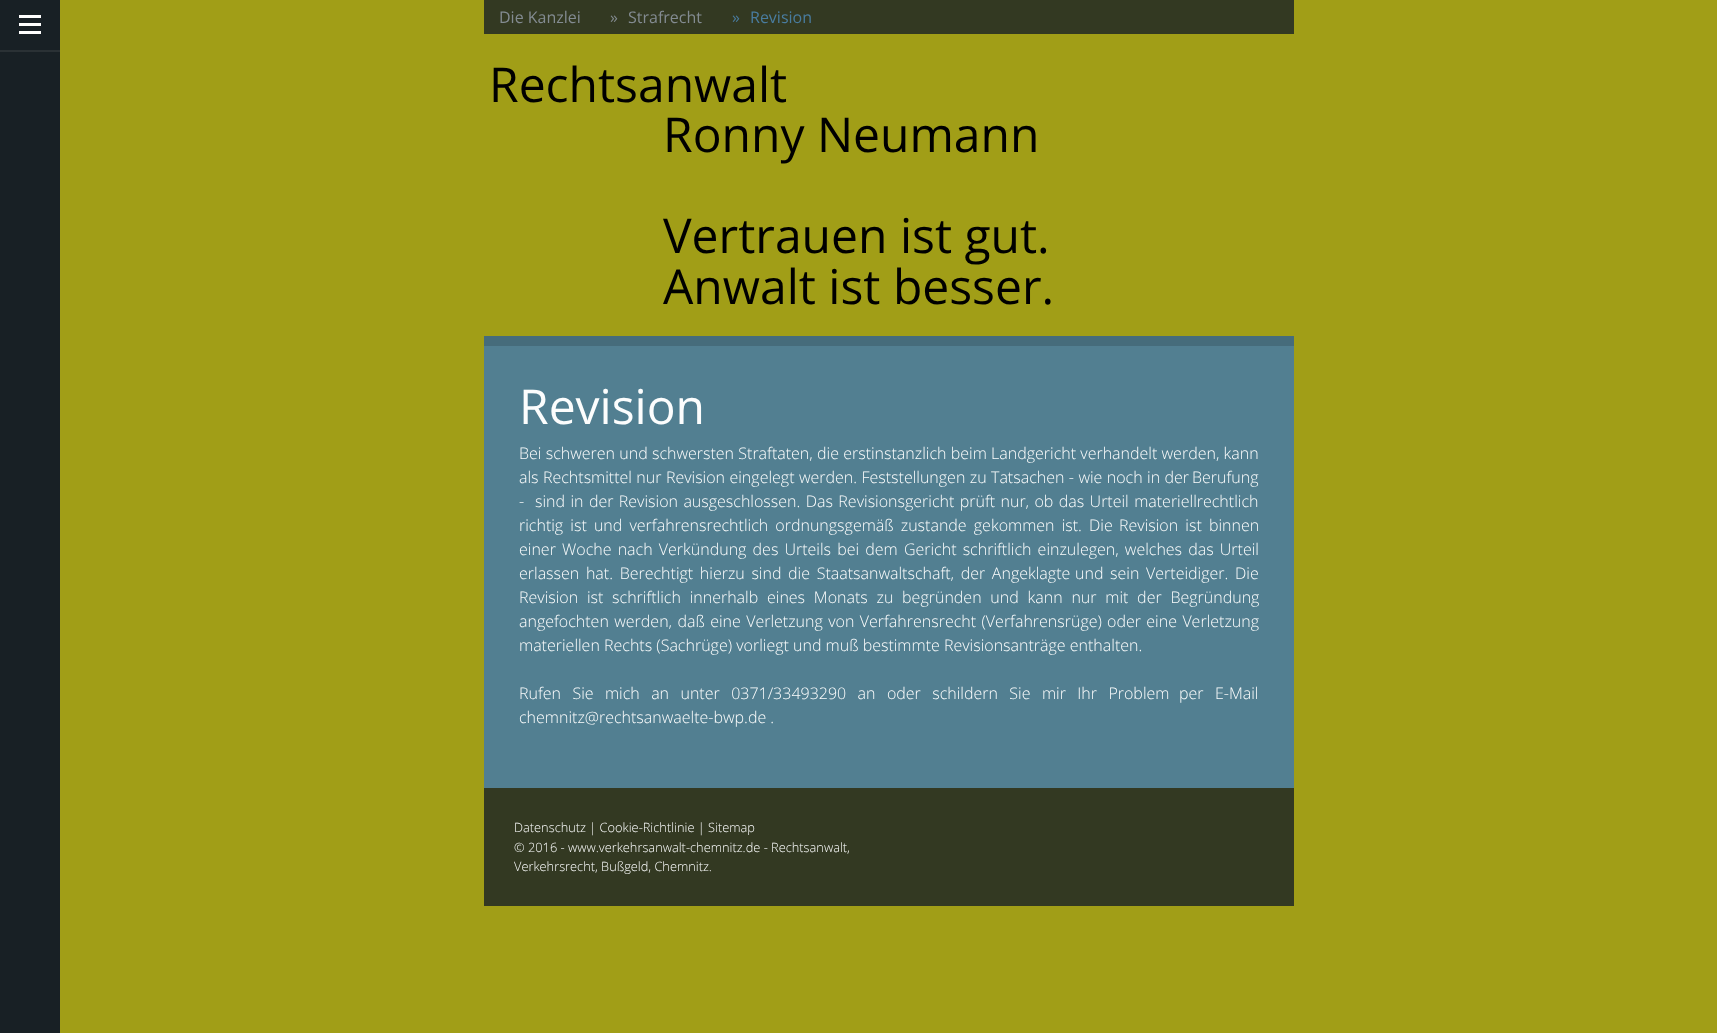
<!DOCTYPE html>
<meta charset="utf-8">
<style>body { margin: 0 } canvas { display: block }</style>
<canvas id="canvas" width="1717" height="1033"></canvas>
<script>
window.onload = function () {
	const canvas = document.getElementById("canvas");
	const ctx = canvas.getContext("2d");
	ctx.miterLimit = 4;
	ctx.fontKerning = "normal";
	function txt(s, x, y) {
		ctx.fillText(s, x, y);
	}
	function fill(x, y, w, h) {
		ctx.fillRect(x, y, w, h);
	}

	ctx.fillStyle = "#A19E17";
	fill(0, 0, 1717, 1033);
	ctx.fillStyle = "#182025";
	fill(0, 0, 60, 1033);
	ctx.fillStyle = "#FFFFFF";
	fill(19, 23, 22, 3);
	fill(19, 15, 22, 3);
	fill(19, 31, 22, 3);
	ctx.fillStyle = "#2A3135";
	fill(0, 50, 60, 2);
	ctx.fillStyle = "#333922";
	fill(484, 0, 810, 34);
	ctx.fillStyle = "#527F91";
	fill(484, 346, 810, 442);
	ctx.fillStyle = "#466C7B";
	fill(484, 336, 810, 10);
	ctx.fillStyle = "#333922";
	fill(484, 788, 810, 118);
	ctx.font = "16px Open Sans";
	ctx.fillStyle = "#838B91";
	txt("Die Kanzlei", 499, 23);
	txt("»", 610, 23);
	txt("Strafrecht", 628, 23);
	ctx.fillStyle = "#497C9F";
	txt("»", 732, 23);
	txt("Revision", 750, 23);
	ctx.font = "48px Open Sans";
	ctx.fillStyle = "#000000";
	txt("Rechtsanwalt", 489, 102);
	txt("Ronny Neumann", 663, 152);
	txt("Vertrauen ist gut.", 663, 253);
	txt("Anwalt ist besser.", 663, 304);
	ctx.fillStyle = "#FCFDFD";
	txt("Revision", 519, 424);
	ctx.wordSpacing = "0.1px";
	ctx.font = "300 16px Open Sans";
	txt("Bei schweren und schwersten Straftaten, die erstinstanzlich beim Landgericht verhandelt werden, kann", 519, 459);
	ctx.wordSpacing = "0.25px";
	txt("als Rechtsmittel nur Revision eingelegt werden. Feststellungen zu Tatsachen - wie noch in der", 519, 483);
	ctx.wordSpacing = "0px";
	txt("Berufung", 1192, 483);
	ctx.wordSpacing = "1.25px";
	txt("-  sind in der Revision ausgeschlossen. Das Revisionsgericht prüft nur, ob das Urteil materiellrechtlich", 519, 507);
	ctx.wordSpacing = "3px";
	txt("richtig ist und verfahrensrechtlich ordnungsgemäß zustande gekommen ist. Die", 519, 531);
	txt("Revision ist binnen", 1119, 531);
	ctx.wordSpacing = "2px";
	txt("einer Woche nach Verkündung des Urteils bei dem Gericht schriftlich einzulegen, welches das Urteil", 519, 555);
	ctx.wordSpacing = "2.5px";
	txt("erlassen hat. Berechtigt hierzu sind die Staatsanwaltschaft, der Angeklagte", 519, 579);
	txt("und sein Verteidiger. Die", 1075, 579);
	ctx.wordSpacing = "4.6px";
	txt("Revision ist schriftlich innerhalb eines Monats zu begründen und kann nur mit der Begründung", 519, 603);
	ctx.wordSpacing = "1.25px";
	txt("angefochten werden, daß eine Verletzung von Verfahrensrecht (Verfahrensrüge)", 519, 627);
	txt("oder eine Verletzung", 1107, 627);
	ctx.wordSpacing = "0px";
	txt("materiellen Rechts (Sachrüge) vorliegt und muß bestimmte Revisionsanträge enthalten.", 519, 651);
	ctx.wordSpacing = "7.25px";
	txt("Rufen Sie mich an unter 0371/33493290 an oder schildern Sie mir Ihr Problem", 519, 699);
	txt("per E-Mail", 1179, 699);
	ctx.wordSpacing = "0px";
	txt("chemnitz@rechtsanwaelte-bwp.de .", 519, 723);
	ctx.font = "300 12.8px Open Sans";
	txt("Datenschutz | Cookie-Richtlinie | Sitemap", 514, 832);
	txt("© 2016 - www.verkehrsanwalt-chemnitz.de - Rechtsanwalt,", 514, 852);
	txt("Verkehrsrecht, Bußgeld, Chemnitz.", 514, 871);
};
</script>
